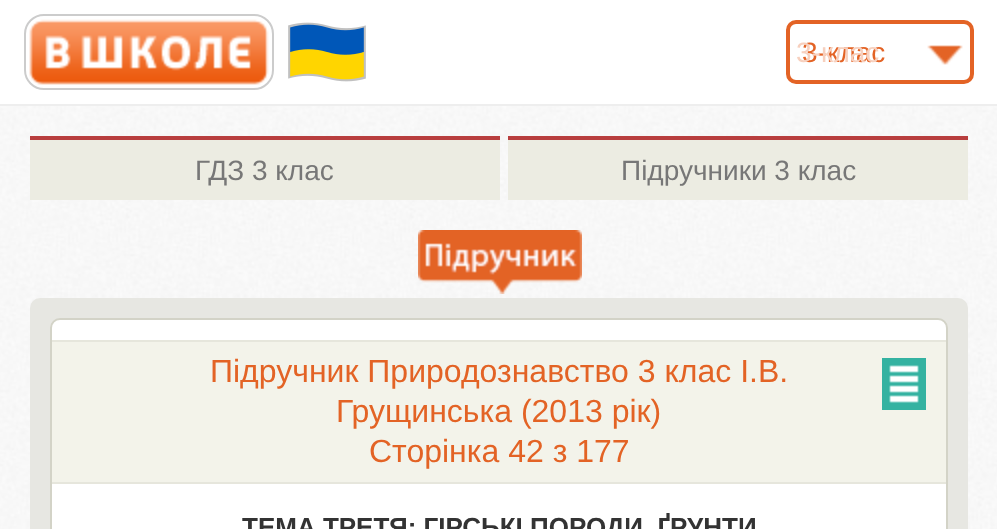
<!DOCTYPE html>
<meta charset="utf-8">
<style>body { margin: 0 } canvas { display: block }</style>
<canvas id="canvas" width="997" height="529"></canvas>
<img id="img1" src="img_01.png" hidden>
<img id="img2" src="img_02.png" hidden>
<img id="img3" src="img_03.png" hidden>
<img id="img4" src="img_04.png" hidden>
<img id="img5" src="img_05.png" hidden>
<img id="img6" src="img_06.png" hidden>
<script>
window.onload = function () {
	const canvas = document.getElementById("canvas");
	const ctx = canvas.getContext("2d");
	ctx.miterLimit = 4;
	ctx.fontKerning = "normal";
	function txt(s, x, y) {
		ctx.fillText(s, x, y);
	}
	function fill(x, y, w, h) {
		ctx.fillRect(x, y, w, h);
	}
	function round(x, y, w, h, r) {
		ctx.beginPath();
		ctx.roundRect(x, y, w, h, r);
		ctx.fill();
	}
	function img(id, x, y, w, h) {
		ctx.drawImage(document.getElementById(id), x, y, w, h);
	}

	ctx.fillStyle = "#FFFFFF";
	fill(0, 0, 997, 529);
	img("img1", 0, 106, 997, 423);
	ctx.fillStyle = "#EEEEEE";
	fill(0, 104, 997, 2);
	img("img2", 29, 19, 240, 71);
	ctx.beginPath();
	ctx.roundRect(25, 15, 248, 74, 19);
	ctx.strokeStyle = "#CCCCCC";
	ctx.lineWidth = 2;
	ctx.stroke();
	img("img3", 288, 22, 78, 60);
	img("img4", 927, 45, 36, 20);
	ctx.beginPath();
	ctx.roundRect(788, 22, 184, 60, 8);
	ctx.strokeStyle = "#E36325";
	ctx.lineWidth = 4;
	ctx.stroke();
	ctx.fillStyle = "#ECECE2";
	fill(30, 140, 470, 60);
	ctx.fillStyle = "#B83E3E";
	fill(30, 136, 470, 4);
	ctx.fillStyle = "#ECECE2";
	fill(508, 140, 460, 60);
	ctx.fillStyle = "#B83E3E";
	fill(508, 136, 460, 4);
	img("img5", 418, 230, 164, 64);
	ctx.fillStyle = "#E7E7E2";
	round(30, 298, 938, 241, 10);
	ctx.fillStyle = "#FFFFFF";
	ctx.beginPath();
	ctx.roundRect(51, 319, 896, 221, 9);
	ctx.fill();
	ctx.strokeStyle = "#D3D3C7";
	ctx.lineWidth = 2;
	ctx.stroke();
	ctx.fillStyle = "#E6E6DC";
	fill(52, 340, 894, 2);
	fill(52, 482, 894, 2);
	ctx.fillStyle = "#F3F3EA";
	fill(52, 342, 894, 140);
	img("img6", 882, 358, 44, 52);
	ctx.font = "28px Liberation Sans";
	ctx.fillStyle = "#E36325";
	txt("3-клас", 802, 62);
	ctx.fillStyle = "#F7D0BE";
	txt("3-клас", 796, 62);
	ctx.fillStyle = "#777777";
	txt("ГДЗ 3 клас", 195, 180);
	txt("Підручники 3 клас", 621, 180);
	ctx.font = "32px Liberation Sans";
	ctx.fillStyle = "#E36325";
	txt("Підручник Природознавство 3 клас І.В.", 210, 382);
	txt("Грущинська (2013 рік)", 336, 422);
	txt("Сторінка 42 з 177", 369, 462);
	ctx.font = "bold 26px Liberation Sans";
	ctx.fillStyle = "#333333";
	txt("ТЕМА ТРЕТЯ: ГІРСЬКІ ПОРОДИ. ҐРУНТИ", 242, 536);
};
</script>
